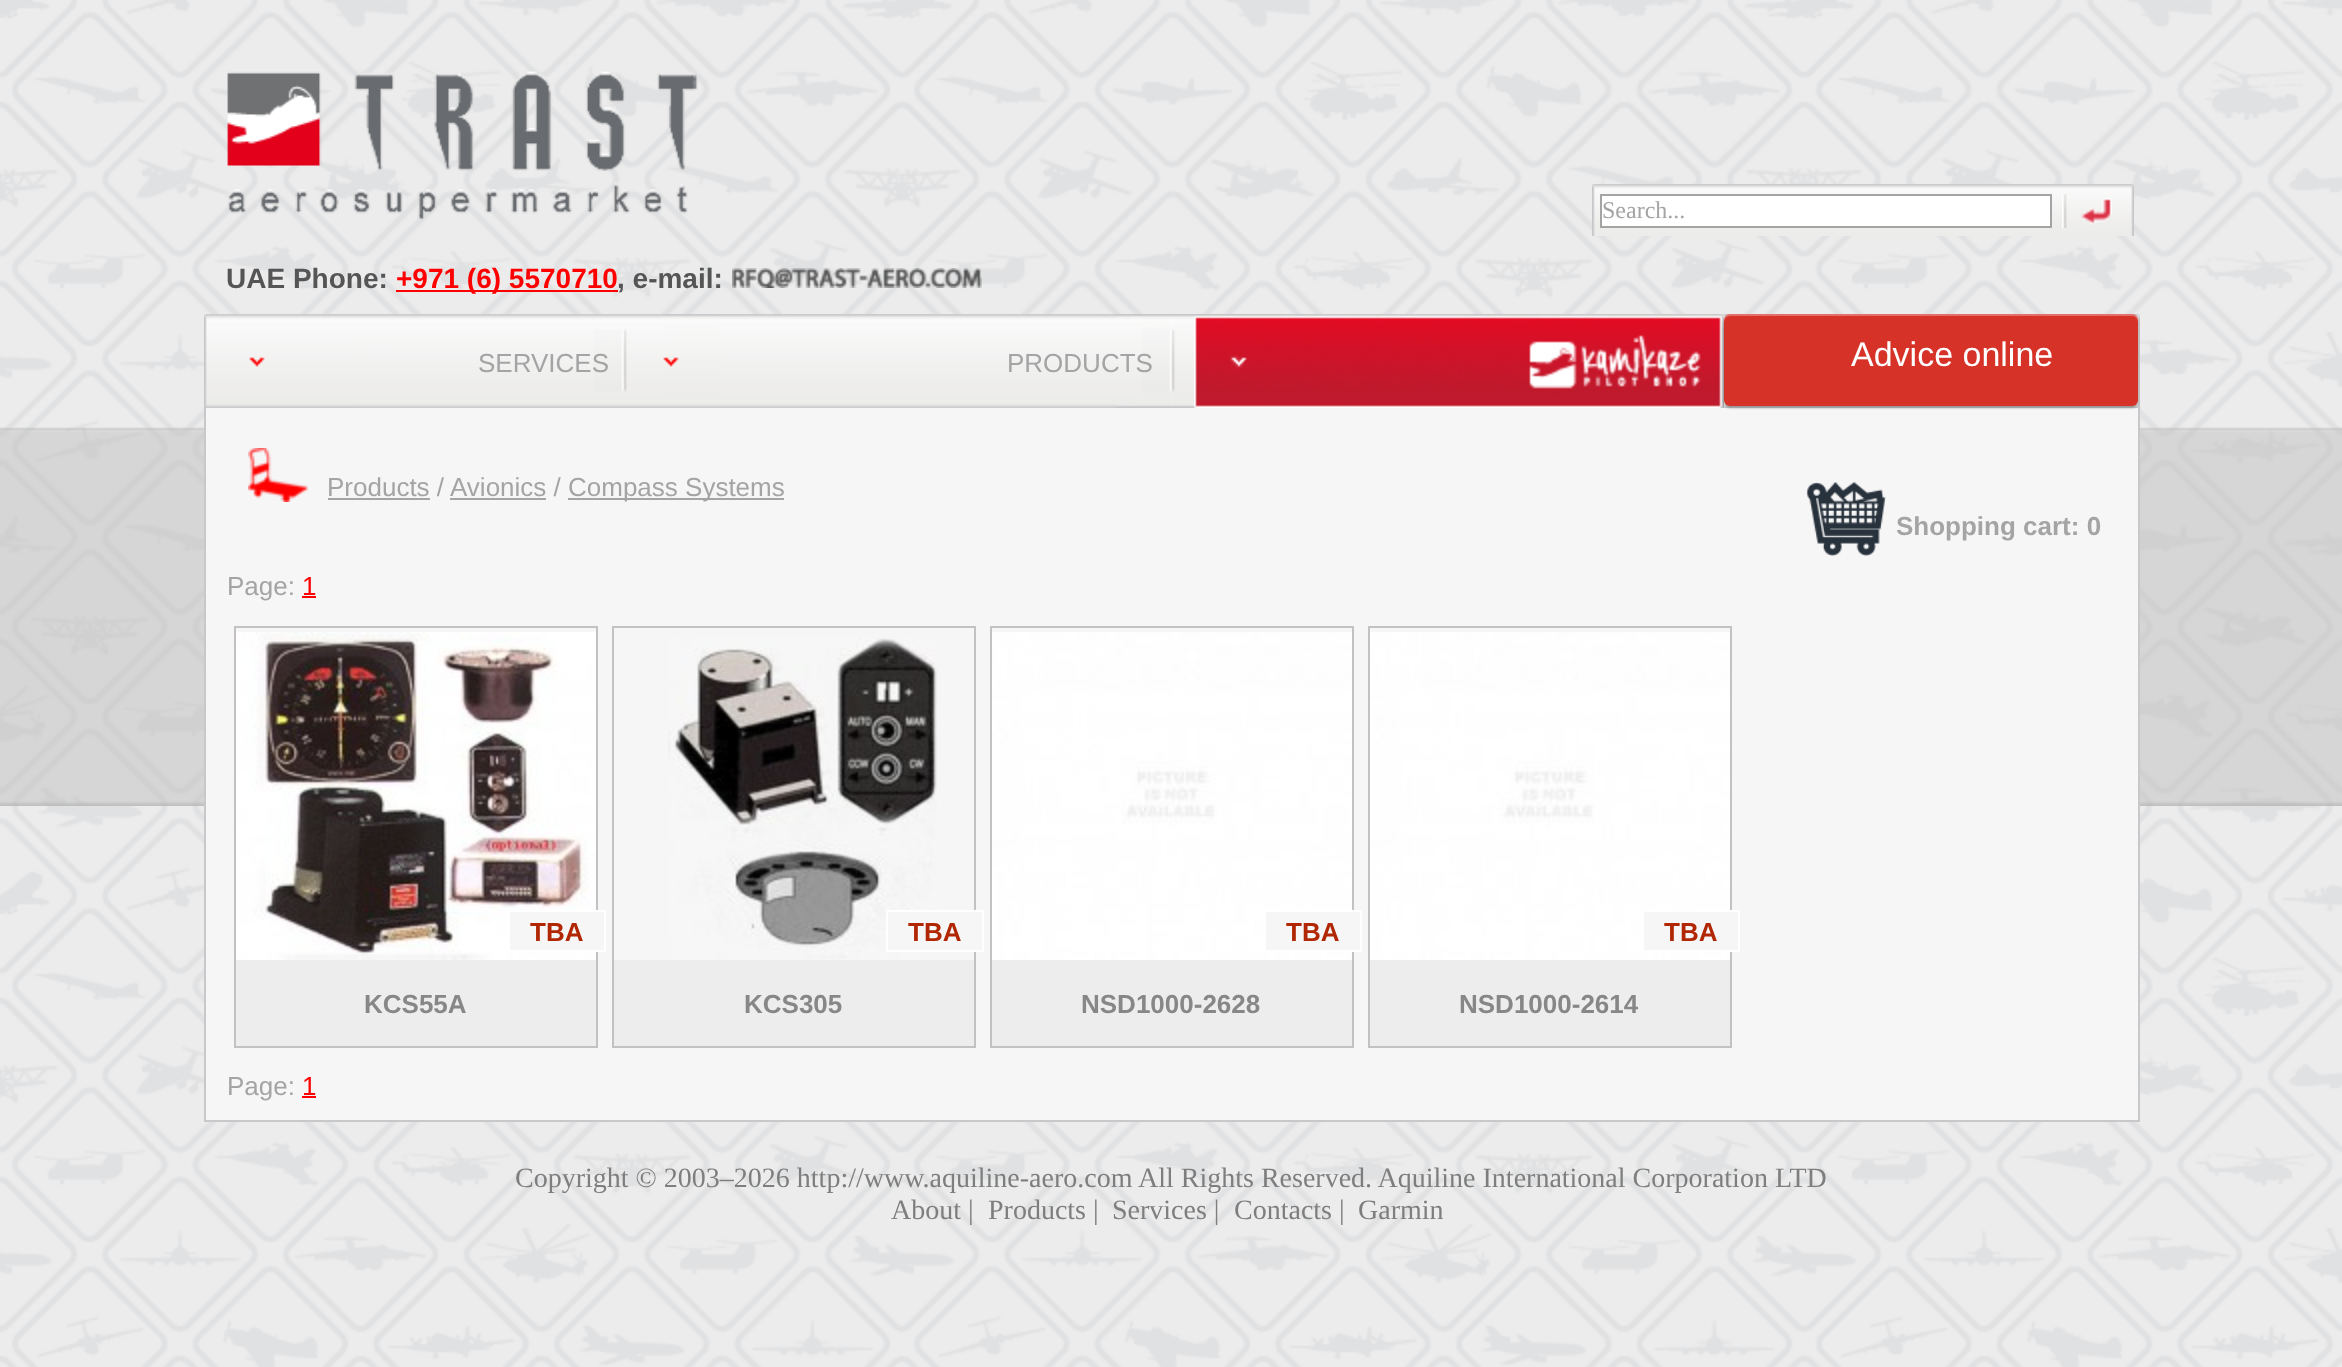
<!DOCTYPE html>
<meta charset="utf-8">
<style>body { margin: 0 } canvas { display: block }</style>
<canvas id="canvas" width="2342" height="1367"></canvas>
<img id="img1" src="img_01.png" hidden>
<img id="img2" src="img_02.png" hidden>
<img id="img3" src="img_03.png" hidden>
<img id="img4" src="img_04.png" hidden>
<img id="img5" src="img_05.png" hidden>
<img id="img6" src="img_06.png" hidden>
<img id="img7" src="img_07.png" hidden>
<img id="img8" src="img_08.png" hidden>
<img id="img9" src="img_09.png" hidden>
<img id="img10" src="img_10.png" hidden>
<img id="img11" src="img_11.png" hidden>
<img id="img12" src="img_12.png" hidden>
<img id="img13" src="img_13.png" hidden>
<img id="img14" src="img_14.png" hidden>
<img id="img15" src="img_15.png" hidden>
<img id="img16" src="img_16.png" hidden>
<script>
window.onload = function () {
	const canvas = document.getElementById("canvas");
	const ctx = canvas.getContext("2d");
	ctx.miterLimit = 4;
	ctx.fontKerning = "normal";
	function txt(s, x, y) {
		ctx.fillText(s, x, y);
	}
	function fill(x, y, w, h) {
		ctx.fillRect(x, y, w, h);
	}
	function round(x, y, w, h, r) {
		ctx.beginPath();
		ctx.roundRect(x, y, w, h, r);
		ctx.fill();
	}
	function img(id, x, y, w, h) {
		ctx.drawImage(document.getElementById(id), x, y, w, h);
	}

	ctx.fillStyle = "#FFFFFF";
	fill(0, 0, 2342, 1367);
	img("img1", 0, 0, 2342, 1367);
	img("img2", 0, 427, 2342, 379);
	img("img3", 227, 71, 471, 149);
	img("img4", 1592, 184, 542, 52);
	img("img5", 2062, 194, 5, 34);
	ctx.beginPath();
	ctx.rect(1601, 195, 450, 32);
	ctx.fill();
	ctx.strokeStyle = "#A4A4A4";
	ctx.lineWidth = 2;
	ctx.stroke();
	img("img6", 2081, 198, 31, 27);
	ctx.fillStyle = "#FF0000";
	fill(396, 290, 222, 2);
	img("img7", 732, 268, 250, 20);
	img("img8", 204, 314, 1936, 94);
	img("img9", 249, 329, 378, 63);
	img("img10", 663, 314, 531, 94);
	img("img11", 1194, 314, 530, 94);
	ctx.fillStyle = "#F6F6F7";
	fill(206, 408, 1932, 712);
	ctx.fillStyle = "#C8C8CA";
	fill(2138, 408, 2, 714);
	ctx.fillStyle = "rgba(0, 0, 0, 0.3)";
	ctx.filter = "blur(1px)";
	ctx.beginPath();
	ctx.roundRect(1724, 316, 414, 92, 6);
	ctx.fill();
	ctx.filter = "none";
	ctx.fillStyle = "#D63228";
	round(1724, 314, 414, 92, 6);
	ctx.fillStyle = "rgba(255, 255, 255, 0.3)";
	ctx.beginPath();
	ctx.moveTo(1730, 316);
	ctx.lineTo(2132, 316);
	ctx.bezierCurveTo(2135, 316, 2138, 319, 2138, 322);
	ctx.lineTo(2138, 320);
	ctx.bezierCurveTo(2138, 317, 2135, 314, 2132, 314);
	ctx.lineTo(1730, 314);
	ctx.bezierCurveTo(1727, 314, 1724, 317, 1724, 320);
	ctx.lineTo(1724, 322);
	ctx.bezierCurveTo(1724, 319, 1727, 316, 1730, 316);
	ctx.closePath();
	ctx.fill();
	ctx.fillStyle = "#C8C8CA";
	fill(204, 408, 2, 20);
	fill(204, 1120, 1936, 2);
	fill(204, 428, 2, 694);
	img("img12", 248, 448, 60, 54);
	ctx.fillStyle = "#A4A4A4";
	fill(328, 498, 102, 2);
	fill(450, 498, 96, 2);
	fill(568, 498, 216, 2);
	img("img13", 1806, 482, 80, 74);
	ctx.fillStyle = "#FF0000";
	fill(302, 596, 14, 2);
	ctx.strokeStyle = "#C2C2C2";
	ctx.strokeRect(235, 627, 362, 420);
	img("img14", 236, 632, 360, 328);
	ctx.fillStyle = "#F6F6F7";
	fill(510, 912, 88, 38);
	ctx.strokeStyle = "#FFFFFF";
	ctx.strokeRect(509, 911, 96, 40);
	ctx.fillStyle = "#EEEDED";
	fill(236, 960, 360, 86);
	ctx.strokeStyle = "#C2C2C2";
	ctx.strokeRect(613, 627, 362, 420);
	img("img15", 668, 638, 269, 321);
	ctx.fillStyle = "#F6F6F7";
	fill(888, 912, 88, 38);
	ctx.strokeStyle = "#FFFFFF";
	ctx.strokeRect(887, 911, 96, 40);
	ctx.fillStyle = "#EEEDED";
	fill(614, 960, 360, 86);
	ctx.strokeStyle = "#C2C2C2";
	ctx.strokeRect(991, 627, 362, 420);
	img("img16", 992, 632, 360, 328);
	ctx.fillStyle = "#F6F6F7";
	fill(1266, 912, 88, 38);
	ctx.strokeStyle = "#FFFFFF";
	ctx.strokeRect(1265, 911, 96, 40);
	ctx.fillStyle = "#EEEDED";
	fill(992, 960, 360, 86);
	ctx.strokeStyle = "#C2C2C2";
	ctx.strokeRect(1369, 627, 362, 420);
	img("img16", 1370, 632, 360, 328);
	ctx.fillStyle = "#F6F6F7";
	fill(1644, 912, 88, 38);
	ctx.strokeStyle = "#FFFFFF";
	ctx.strokeRect(1643, 911, 96, 40);
	ctx.fillStyle = "#EEEDED";
	fill(1370, 960, 360, 86);
	ctx.fillStyle = "#FF0000";
	fill(302, 1096, 14, 2);
	ctx.font = "24px Liberation Serif";
	ctx.fillStyle = "#A4A4A4";
	txt("Search...", 1602, 218);
	ctx.font = "bold 28px Liberation Sans";
	ctx.fillStyle = "#555555";
	txt("UAE Phone:", 226, 288);
	ctx.fillStyle = "#FF0000";
	txt("+971 (6) 5570710", 396, 288);
	ctx.fillStyle = "#555555";
	txt(", e-mail:", 617, 288);
	ctx.font = "26px Liberation Sans";
	ctx.fillStyle = "#A4A4A4";
	txt("SERVICES", 478, 372);
	txt("PRODUCTS", 1007, 372);
	ctx.font = "34px Liberation Sans";
	ctx.fillStyle = "#FFFFFF";
	txt("Advice online", 1851, 366);
	ctx.font = "26px Liberation Sans";
	ctx.fillStyle = "#A4A4A4";
	txt("Products /", 327, 496);
	txt("Avionics /", 450, 496);
	txt("Compass Systems", 568, 496);
	ctx.font = "bold 26px Liberation Sans";
	txt("Shopping cart: 0", 1896, 535);
	ctx.font = "26px Liberation Sans";
	txt("Page:", 227, 595);
	ctx.fillStyle = "#FF0000";
	txt("1", 302, 595);
	ctx.font = "bold 26px Liberation Sans";
	ctx.fillStyle = "#B12704";
	txt("TBA", 530, 941);
	ctx.fillStyle = "#878787";
	txt("KCS55A", 364, 1013);
	ctx.fillStyle = "#B12704";
	txt("TBA", 908, 941);
	ctx.fillStyle = "#878787";
	txt("KCS305", 744, 1013);
	ctx.fillStyle = "#B12704";
	txt("TBA", 1286, 941);
	ctx.fillStyle = "#878787";
	txt("NSD1000-2628", 1081, 1013);
	ctx.fillStyle = "#B12704";
	txt("TBA", 1664, 941);
	ctx.fillStyle = "#878787";
	txt("NSD1000-2614", 1459, 1013);
	ctx.font = "26px Liberation Sans";
	ctx.fillStyle = "#A4A4A4";
	txt("Page:", 227, 1095);
	ctx.fillStyle = "#FF0000";
	txt("1", 302, 1095);
	ctx.font = "28px Liberation Serif";
	ctx.fillStyle = "#7E7E7E";
	txt("Copyright © 2003–2026 http://www.aquiline-aero.com", 515, 1187);
	txt("All Rights Reserved. Aquiline International Corporation LTD", 1138, 1187);
	txt("About |", 891, 1219);
	txt("Products |", 988, 1219);
	txt("Services |", 1112, 1219);
	txt("Contacts |", 1234, 1219);
	txt("Garmin", 1358, 1219);
};
</script>
